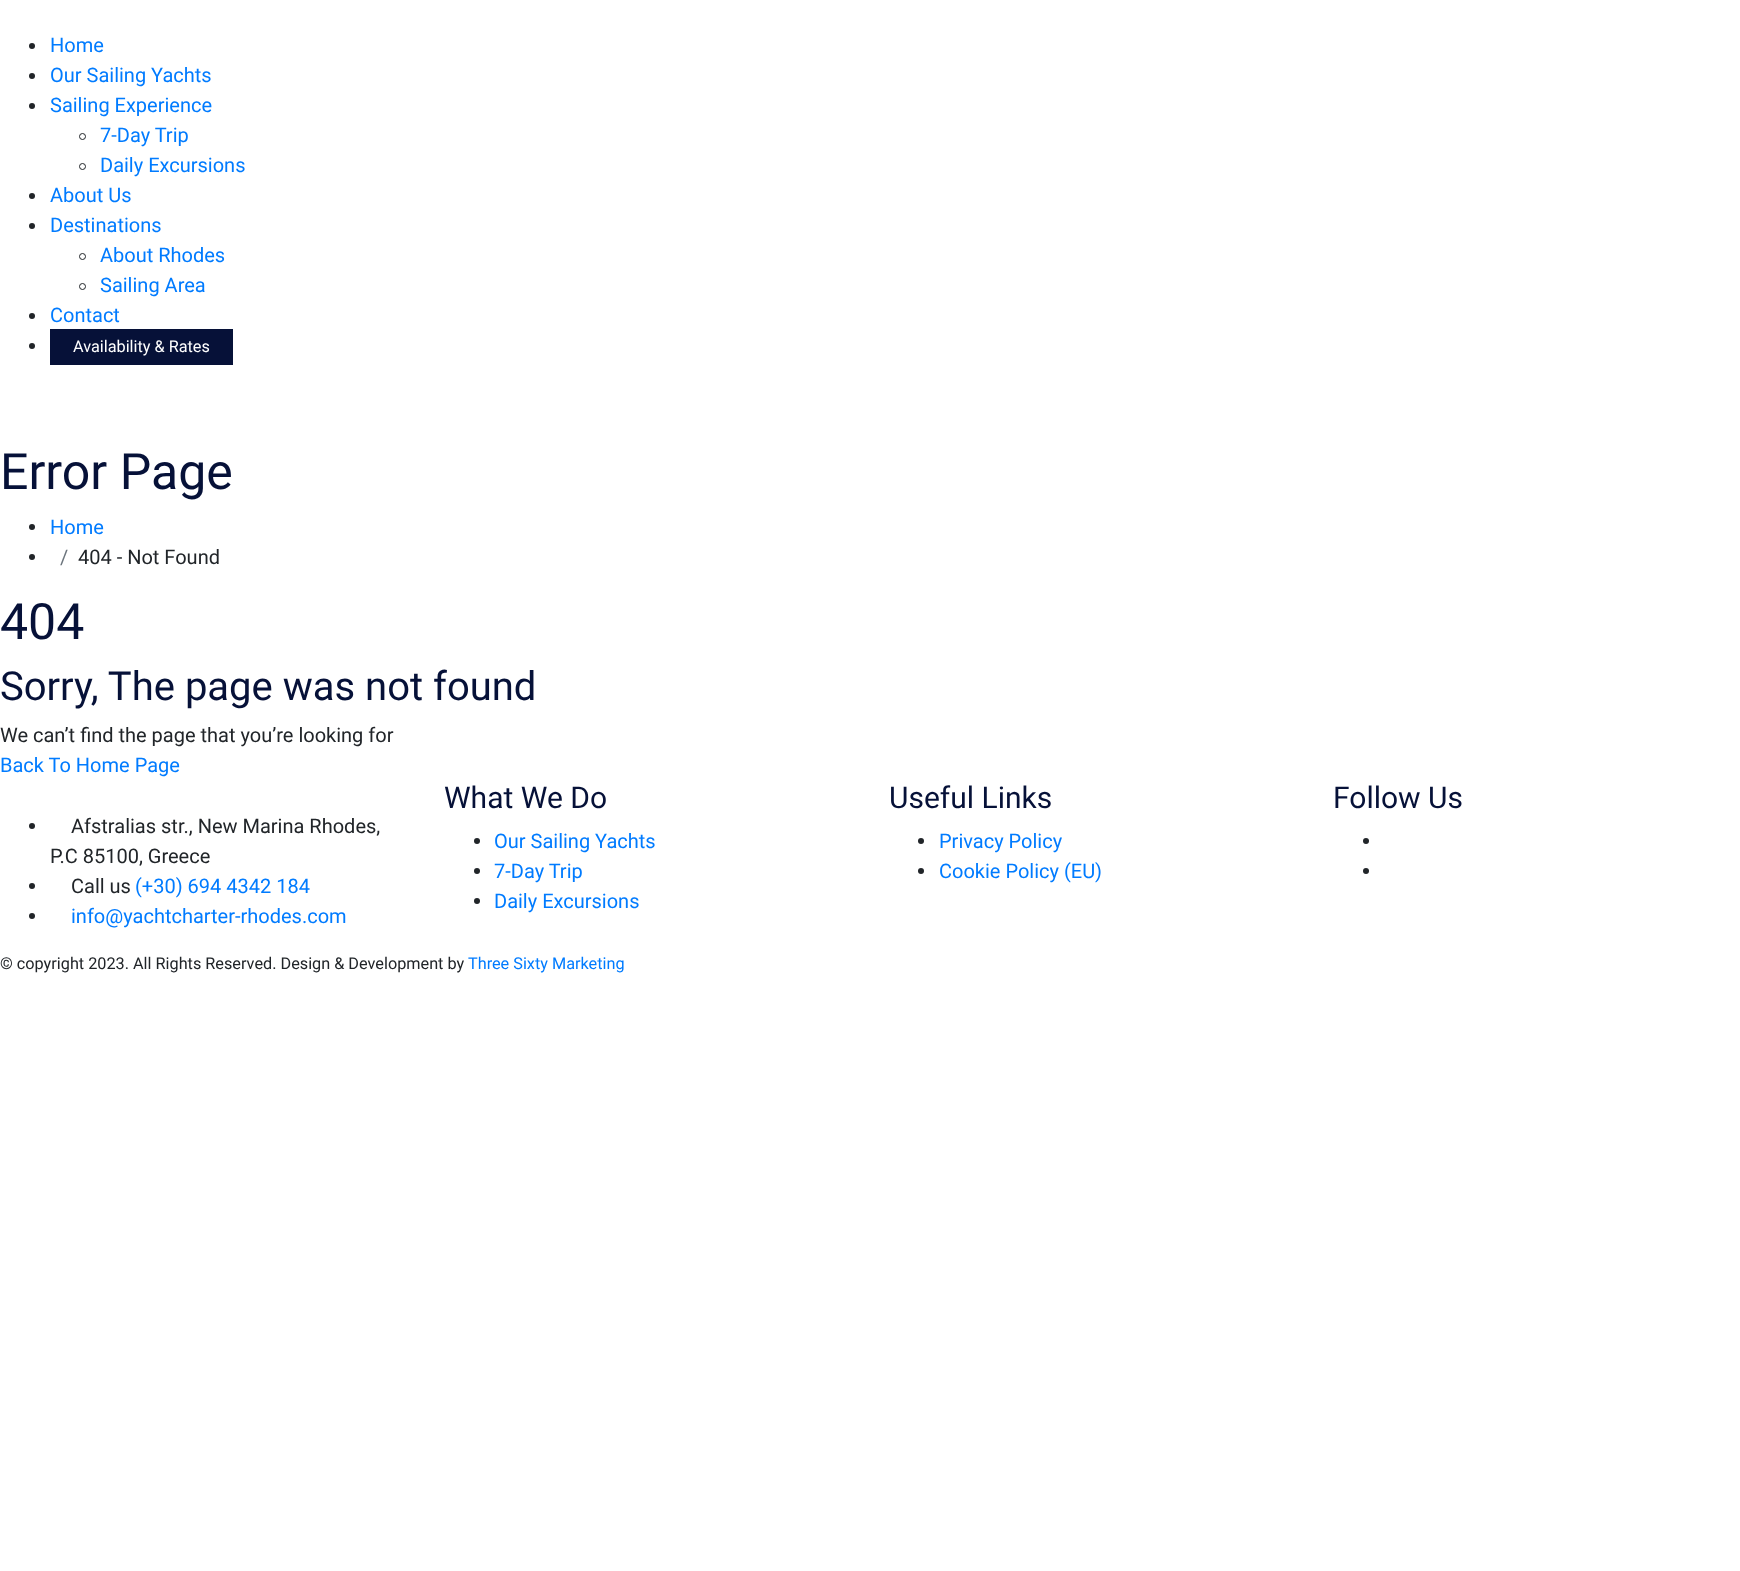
<!DOCTYPE html>
<meta charset="utf-8">
<style>body { margin: 0 } canvas { display: block }</style>
<canvas id="canvas" width="1740" height="1571"></canvas>
<script>
window.onload = function () {
	const canvas = document.getElementById("canvas");
	const ctx = canvas.getContext("2d");
	ctx.miterLimit = 4;
	ctx.fontKerning = "normal";
	function txt(s, x, y) {
		ctx.fillText(s, x, y);
	}
	function fill(x, y, w, h) {
		ctx.fillRect(x, y, w, h);
	}

	ctx.fillStyle = "#FFFFFF";
	fill(0, 0, 1740, 1571);
	ctx.fillStyle = "#212529";
	ctx.beginPath();
	ctx.arc(32, 46, 3, 0, Math.PI * 2);
	ctx.fill();
	ctx.beginPath();
	ctx.arc(32, 76, 3, 0, Math.PI * 2);
	ctx.fill();
	ctx.beginPath();
	ctx.arc(32, 106, 3, 0, Math.PI * 2);
	ctx.fill();
	ctx.beginPath();
	ctx.arc(82.5, 136.5, 3, 0, Math.PI * 2);
	ctx.strokeStyle = "#212529";
	ctx.stroke();
	ctx.beginPath();
	ctx.arc(82.5, 166.5, 3, 0, Math.PI * 2);
	ctx.stroke();
	ctx.beginPath();
	ctx.arc(32, 196, 3, 0, Math.PI * 2);
	ctx.fill();
	ctx.beginPath();
	ctx.arc(32, 226, 3, 0, Math.PI * 2);
	ctx.fill();
	ctx.beginPath();
	ctx.arc(82.5, 256.5, 3, 0, Math.PI * 2);
	ctx.stroke();
	ctx.beginPath();
	ctx.arc(82.5, 286.5, 3, 0, Math.PI * 2);
	ctx.stroke();
	ctx.beginPath();
	ctx.arc(32, 316, 3, 0, Math.PI * 2);
	ctx.fill();
	ctx.beginPath();
	ctx.arc(32, 346, 3, 0, Math.PI * 2);
	ctx.fill();
	ctx.fillStyle = "#061138";
	fill(50, 329, 183, 36);
	ctx.fillStyle = "#212529";
	ctx.beginPath();
	ctx.arc(32, 527, 3, 0, Math.PI * 2);
	ctx.fill();
	ctx.beginPath();
	ctx.arc(32, 557, 3, 0, Math.PI * 2);
	ctx.fill();
	ctx.beginPath();
	ctx.arc(477, 841, 3, 0, Math.PI * 2);
	ctx.fill();
	ctx.beginPath();
	ctx.arc(477, 871, 3, 0, Math.PI * 2);
	ctx.fill();
	ctx.beginPath();
	ctx.arc(477, 901, 3, 0, Math.PI * 2);
	ctx.fill();
	ctx.beginPath();
	ctx.arc(921, 841, 3, 0, Math.PI * 2);
	ctx.fill();
	ctx.beginPath();
	ctx.arc(921, 871, 3, 0, Math.PI * 2);
	ctx.fill();
	ctx.beginPath();
	ctx.arc(1366, 841, 3, 0, Math.PI * 2);
	ctx.fill();
	ctx.beginPath();
	ctx.arc(1366, 871, 3, 0, Math.PI * 2);
	ctx.fill();
	ctx.beginPath();
	ctx.arc(32, 826, 3, 0, Math.PI * 2);
	ctx.fill();
	ctx.beginPath();
	ctx.arc(32, 886, 3, 0, Math.PI * 2);
	ctx.fill();
	ctx.beginPath();
	ctx.arc(32, 916, 3, 0, Math.PI * 2);
	ctx.fill();
	ctx.font = "20px Roboto";
	ctx.fillStyle = "#007BFF";
	txt("Home", 50, 52);
	txt("Our Sailing Yachts", 50, 82);
	txt("Sailing Experience", 50, 112);
	txt("7-Day Trip", 100, 142);
	txt("Daily Excursions", 100, 172);
	txt("About Us", 50, 202);
	txt("Destinations", 50, 232);
	txt("About Rhodes", 100, 262);
	txt("Sailing Area", 100, 292);
	txt("Contact", 50, 322);
	ctx.font = "16.25px Roboto";
	ctx.fillStyle = "#FFFFFF";
	txt("Availability & Rates", 73, 352);
	ctx.font = "50px Roboto";
	ctx.fillStyle = "#061138";
	txt("Error Page", 0, 489);
	ctx.font = "20px Roboto";
	ctx.fillStyle = "#007BFF";
	txt("Home", 50, 534);
	ctx.fillStyle = "#6C757D";
	txt("/", 60, 564);
	ctx.fillStyle = "#212529";
	txt("404 - Not Found", 78, 564);
	ctx.font = "50px Roboto";
	ctx.fillStyle = "#061138";
	txt("404", 0, 639);
	ctx.font = "40px Roboto";
	txt("Sorry, The page was not found", 0, 700);
	ctx.font = "20px Roboto";
	ctx.fillStyle = "#212529";
	txt("We can’t find the page that you’re looking for", 0, 742);
	ctx.fillStyle = "#007BFF";
	txt("Back To Home Page", 0, 772);
	ctx.font = "30px Roboto";
	ctx.fillStyle = "#061138";
	txt("What We Do", 444, 808);
	ctx.font = "20px Roboto";
	ctx.fillStyle = "#007BFF";
	txt("Our Sailing Yachts", 494, 848);
	txt("7-Day Trip", 494, 878);
	txt("Daily Excursions", 494, 908);
	ctx.font = "30px Roboto";
	ctx.fillStyle = "#061138";
	txt("Useful Links", 889, 808);
	ctx.font = "20px Roboto";
	ctx.fillStyle = "#007BFF";
	txt("Privacy Policy", 939, 848);
	txt("Cookie Policy (EU)", 939, 878);
	ctx.font = "30px Roboto";
	ctx.fillStyle = "#061138";
	txt("Follow Us", 1333, 808);
	ctx.font = "20px Roboto";
	ctx.fillStyle = "#212529";
	txt("Afstralias str., New Marina Rhodes,", 71, 833);
	txt("P.C 85100, Greece", 50, 863);
	txt("Call us", 71, 893);
	ctx.fillStyle = "#007BFF";
	txt("(+30) 694 4342 184", 135, 893);
	txt("info@yachtcharter-rhodes.com", 71, 923);
	ctx.font = "16.25px Roboto";
	ctx.fillStyle = "#212529";
	txt("© copyright 2023. All Rights Reserved. Design & Development by", 0, 969);
	ctx.fillStyle = "#007BFF";
	txt("Three Sixty Marketing", 468, 969);
};
</script>
